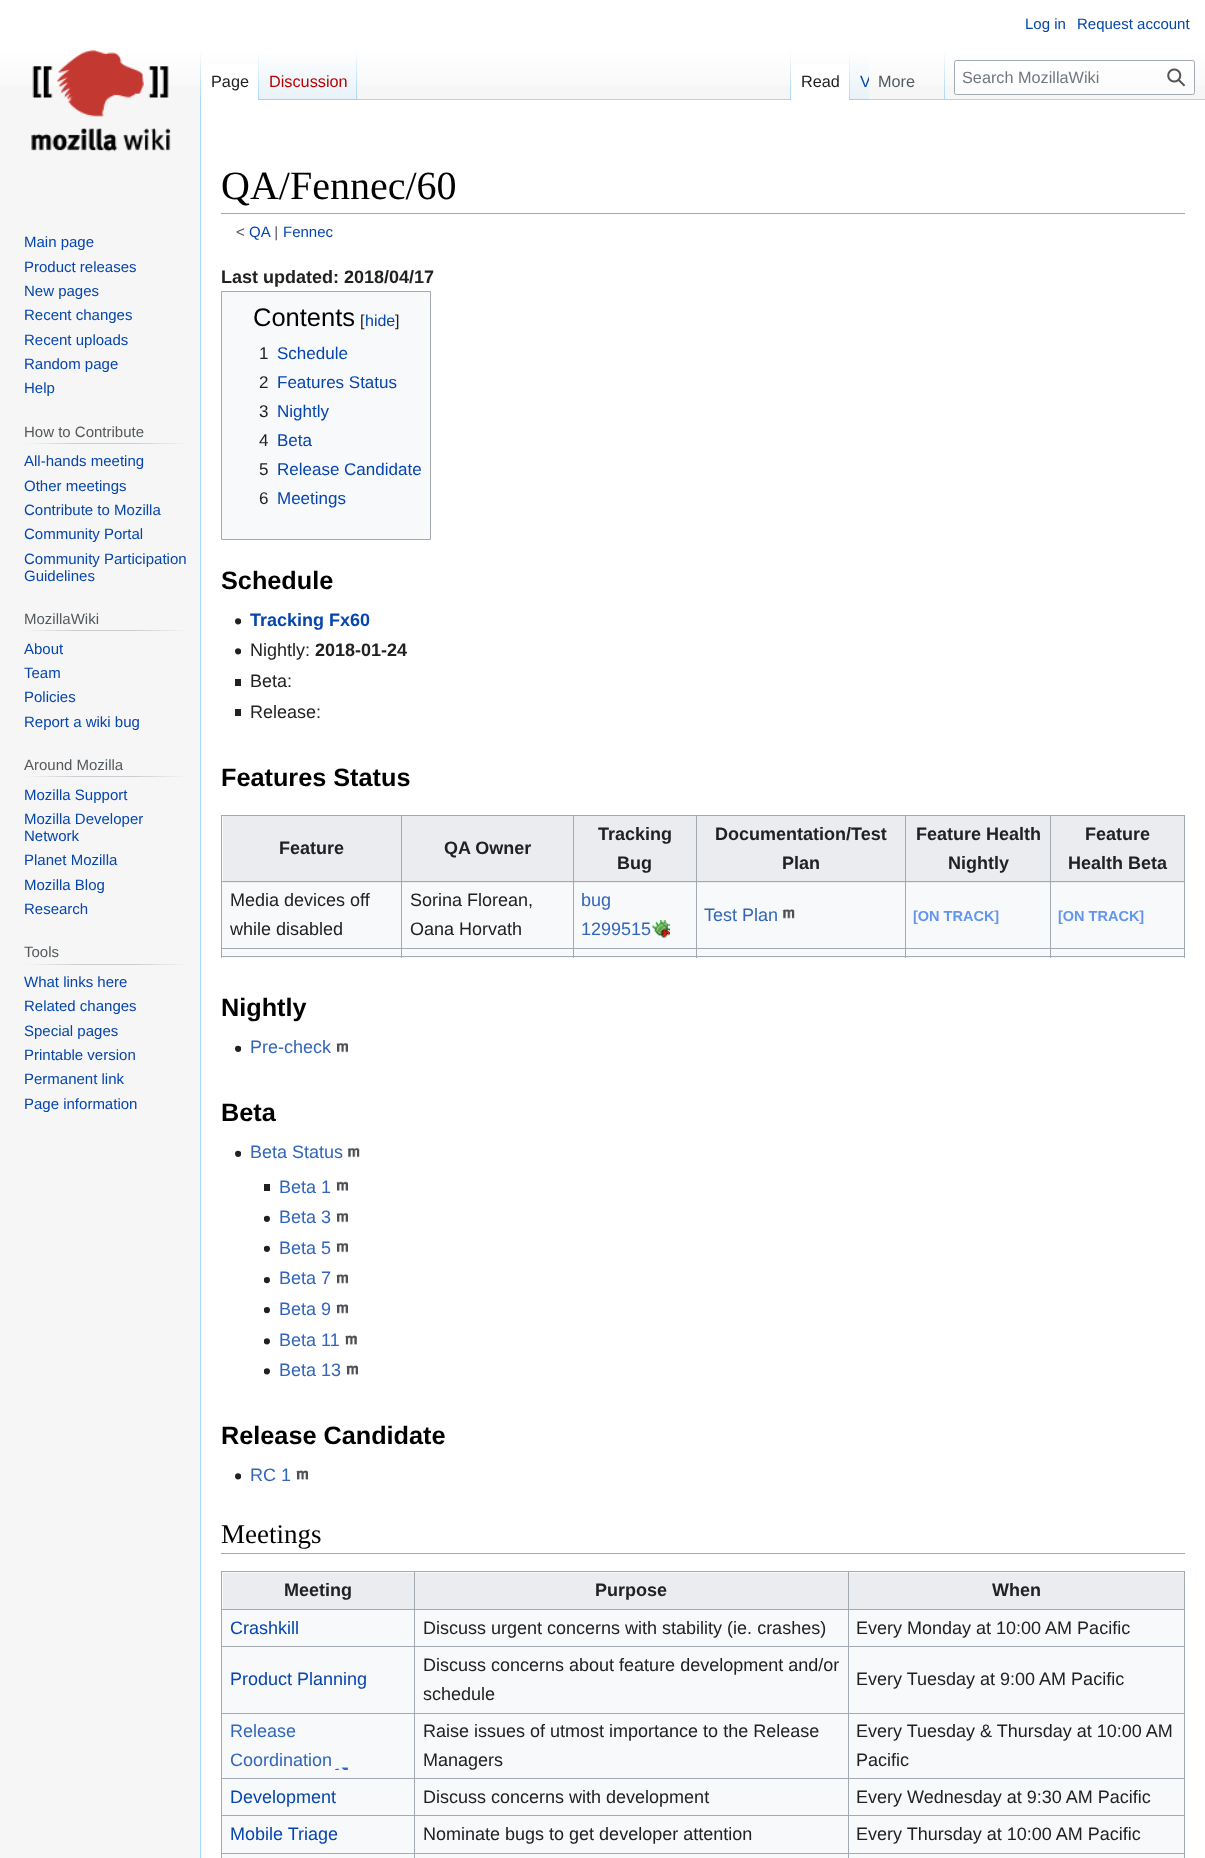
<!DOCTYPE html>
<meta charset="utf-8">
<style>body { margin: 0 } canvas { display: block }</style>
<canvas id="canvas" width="1205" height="1858"></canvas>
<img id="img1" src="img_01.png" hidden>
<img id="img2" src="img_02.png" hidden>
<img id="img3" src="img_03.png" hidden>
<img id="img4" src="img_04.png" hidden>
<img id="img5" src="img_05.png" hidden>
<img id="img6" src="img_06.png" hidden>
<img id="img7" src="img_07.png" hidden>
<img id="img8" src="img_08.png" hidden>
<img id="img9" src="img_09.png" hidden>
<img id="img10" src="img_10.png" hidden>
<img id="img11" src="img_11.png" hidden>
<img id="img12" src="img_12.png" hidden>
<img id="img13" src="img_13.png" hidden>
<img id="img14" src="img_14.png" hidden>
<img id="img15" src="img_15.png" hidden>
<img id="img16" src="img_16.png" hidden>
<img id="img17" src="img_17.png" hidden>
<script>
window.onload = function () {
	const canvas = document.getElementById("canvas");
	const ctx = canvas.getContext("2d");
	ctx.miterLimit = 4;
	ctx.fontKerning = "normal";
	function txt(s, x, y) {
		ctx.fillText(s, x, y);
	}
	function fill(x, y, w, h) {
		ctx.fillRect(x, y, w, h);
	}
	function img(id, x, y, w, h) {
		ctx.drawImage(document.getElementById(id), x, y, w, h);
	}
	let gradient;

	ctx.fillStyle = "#F6F6F6";
	fill(0, 0, 1205, 1858);
	gradient = ctx.createLinearGradient(603, 0, 603, 100);
	gradient.addColorStop(0.5, "#FFFFFF");
	gradient.addColorStop(1, "#F6F6F6");
	ctx.fillStyle = gradient;
	fill(0, 0, 1205, 86);
	ctx.fillStyle = "#A7D7F9";
	fill(200, 99, 1, 1759);
	gradient = ctx.createLinearGradient(201, 50, 201, 100);
	gradient.addColorStop(0, "rgba(167, 215, 249, 0)");
	gradient.addColorStop(1, "#A7D7F9");
	ctx.fillStyle = gradient;
	fill(200, 50, 1, 50);
	ctx.fillStyle = "#FFFFFF";
	fill(201, 64, 57, 36);
	gradient = ctx.createLinearGradient(258, 50, 258, 100);
	gradient.addColorStop(0, "#FFFFFF");
	gradient.addColorStop(1, "#A7D7F9");
	ctx.fillStyle = gradient;
	fill(258, 50, 1, 50);
	gradient = ctx.createLinearGradient(308, 100, 308, 50);
	gradient.addColorStop(0, "#77C1F6");
	gradient.addColorStop(0.03, "#E8F2F8");
	gradient.addColorStop(1, "#FFFFFF");
	ctx.fillStyle = gradient;
	fill(259, 57, 99, 43);
	gradient = ctx.createLinearGradient(357, 50, 357, 100);
	gradient.addColorStop(0, "rgba(167, 215, 249, 0)");
	gradient.addColorStop(1, "#A7D7F9");
	ctx.fillStyle = gradient;
	fill(356, 50, 1, 50);
	ctx.fillStyle = "#A7D7F9";
	fill(358, 99, 847, 1);
	gradient = ctx.createLinearGradient(791, 50, 791, 100);
	gradient.addColorStop(0, "rgba(167, 215, 249, 0)");
	gradient.addColorStop(1, "#A7D7F9");
	ctx.fillStyle = gradient;
	fill(790, 50, 1, 50);
	ctx.fillStyle = "#FFFFFF";
	fill(791, 64, 58, 36);
	gradient = ctx.createLinearGradient(849, 50, 849, 100);
	gradient.addColorStop(0, "#FFFFFF");
	gradient.addColorStop(1, "#A7D7F9");
	ctx.fillStyle = gradient;
	fill(849, 50, 1, 50);
	gradient = ctx.createLinearGradient(859, 100, 859, 50);
	gradient.addColorStop(0, "#77C1F6");
	gradient.addColorStop(0.03, "#E8F2F8");
	gradient.addColorStop(1, "#FFFFFF");
	ctx.fillStyle = gradient;
	fill(850, 57, 19, 43);
	gradient = ctx.createLinearGradient(944, 50, 944, 100);
	gradient.addColorStop(0, "rgba(167, 215, 249, 0)");
	gradient.addColorStop(1, "#A7D7F9");
	ctx.fillStyle = gradient;
	fill(944, 50, 1, 50);
	ctx.fillStyle = "rgba(255, 255, 255, 0.5)";
	ctx.beginPath();
	ctx.roundRect(954.5, 60.5, 240, 34, 2);
	ctx.fill();
	ctx.strokeStyle = "#A2A9B1";
	ctx.stroke();
	img("img1", 1167, 68, 19, 19);
	img("img2", 31, 49, 140, 103);
	gradient = ctx.createLinearGradient(24, 443, 188, 443);
	gradient.addColorStop(0, "#F6F6F6");
	gradient.addColorStop(0.33, "#C8CCD1");
	gradient.addColorStop(0.66, "#C8CCD1");
	gradient.addColorStop(1, "#F6F6F6");
	ctx.fillStyle = gradient;
	fill(24, 443, 164, 1);
	gradient = ctx.createLinearGradient(24, 631, 188, 631);
	gradient.addColorStop(0, "#F6F6F6");
	gradient.addColorStop(0.33, "#C8CCD1");
	gradient.addColorStop(0.66, "#C8CCD1");
	gradient.addColorStop(1, "#F6F6F6");
	ctx.fillStyle = gradient;
	fill(24, 630, 164, 1);
	gradient = ctx.createLinearGradient(24, 777, 188, 777);
	gradient.addColorStop(0, "#F6F6F6");
	gradient.addColorStop(0.33, "#C8CCD1");
	gradient.addColorStop(0.66, "#C8CCD1");
	gradient.addColorStop(1, "#F6F6F6");
	ctx.fillStyle = gradient;
	fill(24, 776, 164, 1);
	gradient = ctx.createLinearGradient(24, 964, 188, 964);
	gradient.addColorStop(0, "#F6F6F6");
	gradient.addColorStop(0.33, "#C8CCD1");
	gradient.addColorStop(0.66, "#C8CCD1");
	gradient.addColorStop(1, "#F6F6F6");
	ctx.fillStyle = gradient;
	fill(24, 964, 164, 1);
	ctx.fillStyle = "#FFFFFF";
	fill(201, 100, 1004, 1758);
	ctx.fillStyle = "#A2A9B1";
	fill(221, 213, 964, 1);
	ctx.fillStyle = "#F8F9FA";
	ctx.beginPath();
	ctx.rect(221.5, 291.5, 209, 248);
	ctx.fill();
	ctx.stroke();
	img("img3", 235, 618, 6, 7);
	img("img3", 235, 648, 6, 7);
	ctx.fillStyle = "#202122";
	fill(235, 679, 6, 7);
	fill(235, 709, 6, 7);
	ctx.fillStyle = "#F8F9FA";
	fill(222, 816, 962, 142);
	ctx.fillStyle = "#A2A9B1";
	fill(221, 815, 964, 1);
	fill(1184, 815, 1, 143);
	fill(221, 956, 964, 1);
	fill(221, 815, 1, 143);
	ctx.fillStyle = "#EAECF0";
	fill(223, 816, 350, 67);
	fill(574, 816, 122, 67);
	fill(697, 816, 208, 67);
	fill(906, 816, 144, 67);
	fill(1051, 816, 133, 67);
	ctx.fillStyle = "#A2A9B1";
	fill(1050, 881, 135, 1);
	fill(1050, 948, 135, 1);
	fill(1050, 948, 1, 10);
	fill(905, 948, 146, 1);
	fill(1050, 881, 1, 68);
	fill(905, 881, 146, 1);
	fill(905, 948, 1, 10);
	fill(696, 948, 210, 1);
	fill(905, 881, 1, 68);
	fill(696, 881, 210, 1);
	fill(696, 948, 1, 10);
	fill(573, 948, 125, 1);
	fill(696, 881, 1, 68);
	fill(573, 881, 125, 1);
	fill(573, 948, 1, 10);
	fill(401, 948, 173, 1);
	fill(573, 881, 1, 68);
	fill(401, 881, 173, 1);
	fill(401, 948, 1, 10);
	fill(221, 948, 182, 1);
	fill(401, 881, 1, 68);
	fill(221, 881, 182, 1);
	fill(401, 815, 1, 68);
	fill(573, 815, 1, 68);
	fill(696, 815, 1, 68);
	fill(905, 815, 1, 68);
	fill(1050, 815, 1, 68);
	img("img4", 652, 920, 18, 18);
	img("img5", 782, 909, 13, 10);
	img("img6", 235, 1045, 6, 7);
	img("img7", 336, 1042, 12, 11);
	img("img6", 235, 1150, 6, 7);
	img("img8", 347, 1147, 13, 11);
	ctx.fillStyle = "#202122";
	fill(264, 1184, 6, 7);
	img("img9", 336, 1181, 12, 10);
	img("img10", 264, 1215, 6, 7);
	img("img7", 336, 1212, 12, 11);
	img("img10", 264, 1245, 6, 7);
	img("img7", 336, 1242, 12, 11);
	img("img11", 264, 1277, 6, 7);
	img("img12", 336, 1274, 12, 10);
	img("img13", 264, 1307, 6, 7);
	img("img12", 336, 1304, 12, 10);
	img("img14", 264, 1338, 6, 7);
	img("img15", 345, 1335, 12, 10);
	img("img14", 264, 1368, 6, 7);
	img("img16", 346, 1365, 12, 10);
	img("img3", 235, 1473, 6, 7);
	img("img16", 296, 1470, 12, 10);
	ctx.fillStyle = "#A2A9B1";
	fill(221, 1553, 964, 1);
	ctx.fillStyle = "#F8F9FA";
	fill(222, 1572, 962, 286);
	ctx.fillStyle = "#A2A9B1";
	fill(221, 1571, 964, 1);
	fill(1184, 1571, 1, 287);
	fill(221, 1571, 1, 287);
	ctx.fillStyle = "#EAECF0";
	fill(223, 1573, 191, 36);
	fill(415, 1573, 433, 36);
	ctx.fillStyle = "#A2A9B1";
	fill(848, 1609, 337, 1);
	fill(848, 1646, 337, 1);
	fill(848, 1713, 337, 1);
	fill(848, 1778, 337, 1);
	fill(848, 1815, 337, 1);
	fill(848, 1853, 337, 1);
	fill(848, 1853, 1, 5);
	fill(414, 1853, 435, 1);
	fill(848, 1815, 1, 39);
	fill(414, 1815, 435, 1);
	fill(848, 1778, 1, 38);
	fill(414, 1778, 435, 1);
	fill(848, 1713, 1, 66);
	fill(414, 1713, 435, 1);
	fill(848, 1646, 1, 68);
	fill(414, 1646, 435, 1);
	fill(848, 1609, 1, 39);
	fill(414, 1609, 435, 1);
	fill(414, 1853, 1, 5);
	fill(221, 1853, 194, 1);
	fill(414, 1815, 1, 39);
	fill(221, 1815, 194, 1);
	fill(414, 1778, 1, 38);
	fill(221, 1778, 194, 1);
	fill(414, 1713, 1, 66);
	fill(221, 1713, 194, 1);
	fill(414, 1646, 1, 68);
	fill(221, 1646, 194, 1);
	fill(414, 1609, 1, 39);
	fill(221, 1609, 194, 1);
	fill(414, 1571, 1, 39);
	ctx.fillStyle = "#EAECF0";
	fill(849, 1573, 335, 36);
	ctx.fillStyle = "#A2A9B1";
	fill(848, 1571, 1, 39);
	img("img17", 335, 1767, 13, 3);
	ctx.font = "15px Liberation Sans";
	ctx.fillStyle = "#0645AD";
	txt("Log in", 1025, 29);
	txt("Request account", 1077, 29);
	ctx.font = "16.25px Liberation Sans";
	ctx.fillStyle = "#202122";
	txt("Page", 211, 87);
	ctx.fillStyle = "#BA0000";
	txt("Discussion", 269, 87);
	ctx.fillStyle = "#202122";
	txt("Read", 801, 87);
	ctx.save();
	ctx.beginPath();
	ctx.rect(850, 50, 19, 50);
	ctx.clip();
	ctx.fillStyle = "#0645AD";
	txt("V", 860, 87);
	ctx.restore();
	ctx.fillStyle = "#54595D";
	txt("More", 878, 87);
	ctx.fillStyle = "#72777D";
	txt("Search MozillaWiki", 962, 83);
	ctx.font = "15px Liberation Sans";
	ctx.fillStyle = "#0645AD";
	txt("Main page", 24, 247);
	txt("Product releases", 24, 272);
	txt("New pages", 24, 296);
	txt("Recent changes", 24, 320);
	txt("Recent uploads", 24, 345);
	txt("Random page", 24, 369);
	txt("Help", 24, 393);
	ctx.fillStyle = "#54595D";
	txt("How to Contribute", 24, 437);
	ctx.fillStyle = "#0645AD";
	txt("All-hands meeting", 24, 466);
	txt("Other meetings", 24, 491);
	txt("Contribute to Mozilla", 24, 515);
	txt("Community Portal", 24, 539);
	txt("Community Participation", 24, 564);
	txt("Guidelines", 24, 581);
	ctx.fillStyle = "#54595D";
	txt("MozillaWiki", 24, 624);
	ctx.fillStyle = "#0645AD";
	txt("About", 24, 654);
	txt("Team", 24, 678);
	txt("Policies", 24, 702);
	txt("Report a wiki bug", 24, 727);
	ctx.fillStyle = "#54595D";
	txt("Around Mozilla", 24, 770);
	ctx.fillStyle = "#0645AD";
	txt("Mozilla Support", 24, 800);
	txt("Mozilla Developer", 24, 824);
	txt("Network", 24, 841);
	txt("Planet Mozilla", 24, 865);
	txt("Mozilla Blog", 24, 890);
	txt("Research", 24, 914);
	ctx.fillStyle = "#54595D";
	txt("Tools", 24, 957);
	ctx.fillStyle = "#0645AD";
	txt("What links here", 24, 987);
	txt("Related changes", 24, 1011);
	txt("Special pages", 24, 1036);
	txt("Printable version", 24, 1060);
	txt("Permanent link", 24, 1084);
	txt("Page information", 24, 1109);
	ctx.font = "40px Liberation Serif";
	ctx.fillStyle = "#000000";
	txt("QA/Fennec/60", 221, 199);
	ctx.font = "15px Liberation Sans";
	ctx.fillStyle = "#54595D";
	txt("<", 236, 237);
	ctx.fillStyle = "#0645AD";
	txt("QA", 249, 237);
	ctx.fillStyle = "#54595D";
	txt(" |", 270, 237);
	ctx.fillStyle = "#0645AD";
	txt("Fennec", 283, 237);
	ctx.font = "bold 18px Liberation Sans";
	ctx.fillStyle = "#202122";
	txt("Last updated: 2018/04/17", 221, 283);
	ctx.font = "25.5px Liberation Sans";
	ctx.fillStyle = "#000000";
	txt("Contents", 253, 326);
	ctx.font = "16px Liberation Sans";
	ctx.fillStyle = "#202122";
	txt("[", 360, 326);
	ctx.fillStyle = "#0645AD";
	txt("hide", 365, 326);
	ctx.fillStyle = "#202122";
	txt("]", 395, 326);
	ctx.font = "17px Liberation Sans";
	txt("1", 259, 359);
	ctx.fillStyle = "#0645AD";
	txt("Schedule", 277, 359);
	ctx.fillStyle = "#202122";
	txt("2", 259, 388);
	ctx.fillStyle = "#0645AD";
	txt("Features Status", 277, 388);
	ctx.fillStyle = "#202122";
	txt("3", 259, 417);
	ctx.fillStyle = "#0645AD";
	txt("Nightly", 277, 417);
	ctx.fillStyle = "#202122";
	txt("4", 259, 446);
	ctx.fillStyle = "#0645AD";
	txt("Beta", 277, 446);
	ctx.fillStyle = "#202122";
	txt("5", 259, 475);
	ctx.fillStyle = "#0645AD";
	txt("Release Candidate", 277, 475);
	ctx.fillStyle = "#202122";
	txt("6", 259, 504);
	ctx.fillStyle = "#0645AD";
	txt("Meetings", 277, 504);
	ctx.font = "bold 25.25px Liberation Sans";
	ctx.fillStyle = "#000000";
	txt("Schedule", 221, 589);
	ctx.font = "bold 18px Liberation Sans";
	ctx.fillStyle = "#0645AD";
	txt("Tracking Fx60", 250, 626);
	ctx.font = "18px Liberation Sans";
	ctx.fillStyle = "#202122";
	txt("Nightly:", 250, 656);
	ctx.font = "bold 18px Liberation Sans";
	txt("2018-01-24", 315, 656);
	ctx.font = "18px Liberation Sans";
	txt("Beta:", 250, 687);
	txt("Release:", 250, 718);
	ctx.font = "bold 25.25px Liberation Sans";
	ctx.fillStyle = "#000000";
	txt("Features Status", 221, 786);
	ctx.font = "bold 18px Liberation Sans";
	ctx.fillStyle = "#202122";
	txt("Feature", 279, 854);
	txt("QA Owner", 444, 854);
	txt("Tracking", 598, 840);
	txt("Bug", 617, 869);
	txt("Documentation/Test", 715, 840);
	txt("Plan", 782, 869);
	txt("Feature Health", 916, 840);
	txt("Nightly", 948, 869);
	txt("Feature", 1085, 840);
	txt("Health Beta", 1068, 869);
	ctx.font = "18px Liberation Sans";
	txt("Media devices off", 230, 906);
	txt("while disabled", 230, 935);
	txt("Sorina Florean,", 410, 906);
	txt("Oana Horvath", 410, 935);
	ctx.fillStyle = "#3366BB";
	txt("bug", 581, 906);
	txt("1299515", 581, 935);
	txt("Test Plan", 704, 921);
	ctx.font = "bold 14.5px Liberation Sans";
	ctx.fillStyle = "#6495ED";
	txt("[ON TRACK]", 913, 921);
	txt("[ON TRACK]", 1058, 921);
	ctx.font = "bold 25.25px Liberation Sans";
	ctx.fillStyle = "#000000";
	txt("Nightly", 221, 1016);
	ctx.font = "18px Liberation Sans";
	ctx.fillStyle = "#3366BB";
	txt("Pre-check", 250, 1053);
	ctx.font = "bold 25.25px Liberation Sans";
	ctx.fillStyle = "#000000";
	txt("Beta", 221, 1121);
	ctx.font = "18px Liberation Sans";
	ctx.fillStyle = "#3366BB";
	txt("Beta Status", 250, 1158);
	txt("Beta 1", 279, 1193);
	txt("Beta 3", 279, 1223);
	txt("Beta 5", 279, 1254);
	txt("Beta 7", 279, 1284);
	txt("Beta 9", 279, 1315);
	txt("Beta 11", 279, 1346);
	txt("Beta 13", 279, 1376);
	ctx.font = "bold 25.25px Liberation Sans";
	ctx.fillStyle = "#000000";
	txt("Release Candidate", 221, 1444);
	ctx.font = "18px Liberation Sans";
	ctx.fillStyle = "#3366BB";
	txt("RC 1", 250, 1481);
	ctx.font = "27px Liberation Serif";
	ctx.fillStyle = "#000000";
	txt("Meetings", 221, 1543);
	ctx.font = "bold 18px Liberation Sans";
	ctx.fillStyle = "#202122";
	txt("Meeting", 284, 1596);
	txt("Purpose", 595, 1596);
	txt("When", 992, 1596);
	ctx.font = "18px Liberation Sans";
	ctx.fillStyle = "#0645AD";
	txt("Crashkill", 230, 1634);
	ctx.fillStyle = "#202122";
	txt("Discuss urgent concerns with stability (ie. crashes)", 423, 1634);
	txt("Every Monday at 10:00 AM Pacific", 856, 1634);
	ctx.fillStyle = "#0645AD";
	txt("Product Planning", 230, 1685);
	ctx.fillStyle = "#202122";
	txt("Discuss concerns about feature development and/or", 423, 1671);
	txt("schedule", 423, 1700);
	txt("Every Tuesday at 9:00 AM Pacific", 856, 1685);
	ctx.fillStyle = "#3366BB";
	txt("Release", 230, 1737);
	txt("Coordination", 230, 1766);
	ctx.fillStyle = "#202122";
	txt("Raise issues of utmost importance to the Release", 423, 1737);
	txt("Managers", 423, 1766);
	txt("Every Tuesday & Thursday at 10:00 AM", 856, 1737);
	txt("Pacific", 856, 1766);
	ctx.fillStyle = "#0645AD";
	txt("Development", 230, 1803);
	ctx.fillStyle = "#202122";
	txt("Discuss concerns with development", 423, 1803);
	txt("Every Wednesday at 9:30 AM Pacific", 856, 1803);
	ctx.fillStyle = "#0645AD";
	txt("Mobile Triage", 230, 1840);
	ctx.fillStyle = "#202122";
	txt("Nominate bugs to get developer attention", 423, 1840);
	txt("Every Thursday at 10:00 AM Pacific", 856, 1840);
};
</script>
